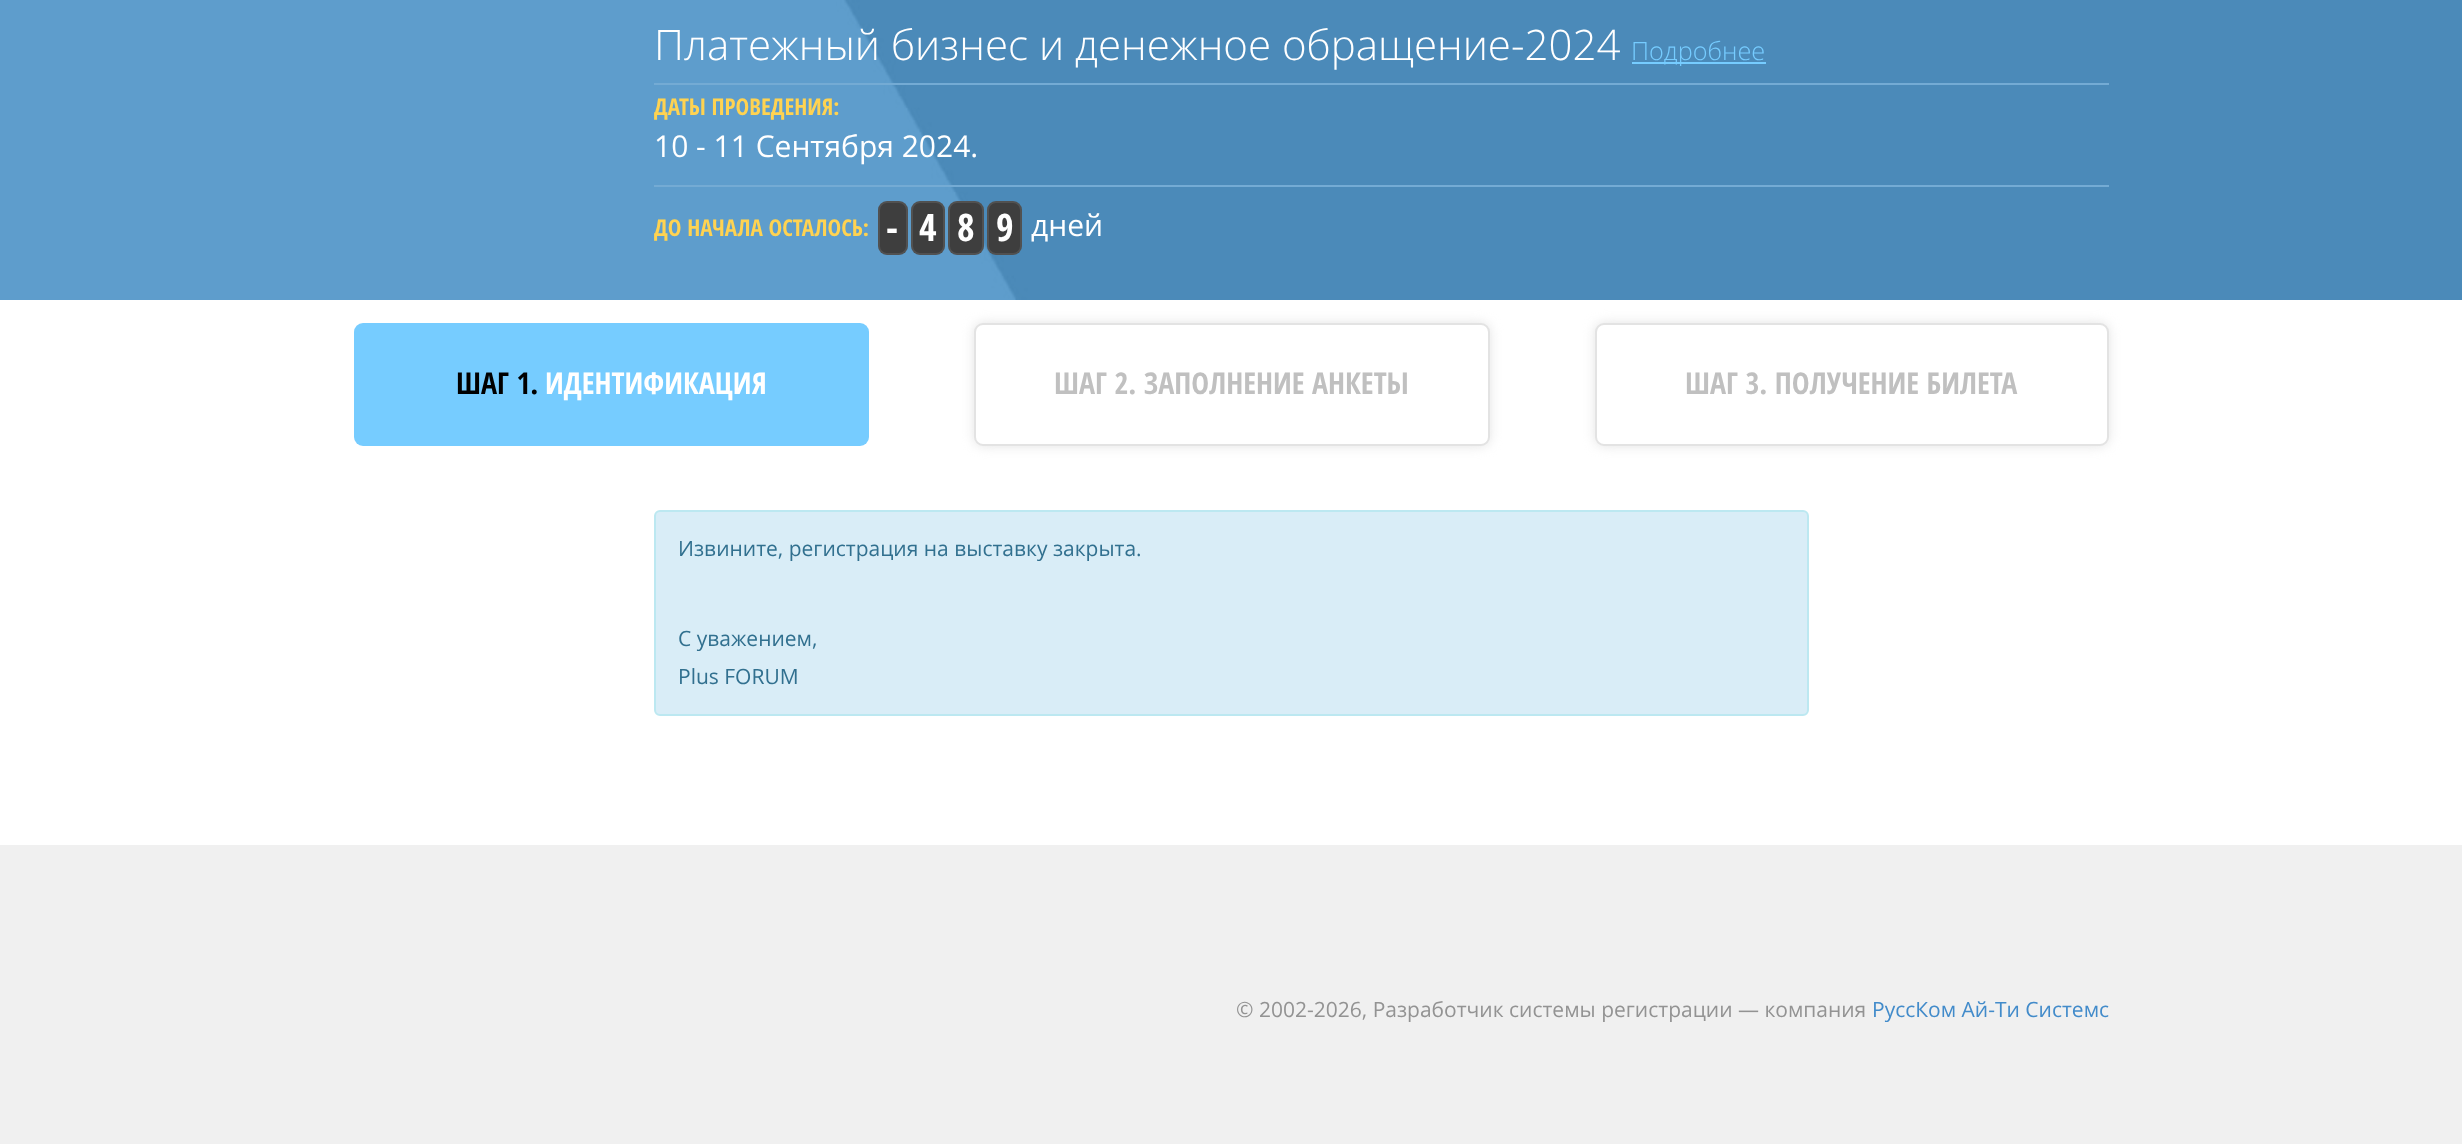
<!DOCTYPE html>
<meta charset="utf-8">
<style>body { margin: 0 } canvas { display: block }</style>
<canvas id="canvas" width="2462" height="1144"></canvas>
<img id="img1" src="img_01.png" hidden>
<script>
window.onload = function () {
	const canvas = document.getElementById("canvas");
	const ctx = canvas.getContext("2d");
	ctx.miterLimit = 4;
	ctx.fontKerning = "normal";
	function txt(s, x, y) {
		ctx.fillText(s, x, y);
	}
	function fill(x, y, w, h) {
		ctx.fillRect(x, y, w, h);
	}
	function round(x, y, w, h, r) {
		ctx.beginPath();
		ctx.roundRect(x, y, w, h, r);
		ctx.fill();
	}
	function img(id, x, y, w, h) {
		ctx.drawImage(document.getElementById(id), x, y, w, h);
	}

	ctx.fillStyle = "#FFFFFF";
	fill(0, 0, 2462, 1144);
	ctx.fillStyle = "#5E9DCC";
	fill(0, 0, 836, 300);
	img("img1", 836, 0, 1626, 300);
	ctx.fillStyle = "#74ABD4";
	fill(654, 83, 1455, 2);
	ctx.fillStyle = "#76CCFF";
	fill(1632, 62, 134, 2);
	ctx.fillStyle = "#74ABD4";
	fill(654, 185, 1455, 2);
	ctx.fillStyle = "#3E3E3E";
	round(878, 201, 30, 54, 9);
	ctx.beginPath();
	ctx.roundRect(879, 202, 28, 52, 8);
	ctx.strokeStyle = "rgba(255, 255, 255, 0.1)";
	ctx.lineWidth = 2;
	ctx.stroke();
	round(911, 201, 34, 54, 9);
	ctx.beginPath();
	ctx.roundRect(912, 202, 32, 52, 8);
	ctx.stroke();
	round(948, 201, 36, 54, 9);
	ctx.beginPath();
	ctx.roundRect(949, 202, 34, 52, 8);
	ctx.stroke();
	round(987, 201, 35, 54, 9);
	ctx.beginPath();
	ctx.roundRect(988, 202, 33, 52, 8);
	ctx.stroke();
	ctx.fillStyle = "#76CCFF";
	round(354, 323, 515, 123, 9);
	ctx.fillStyle = "#E3E3E3";
	ctx.filter = "blur(6px)";
	ctx.beginPath();
	ctx.roundRect(974, 323, 516, 123, 9);
	ctx.fill();
	ctx.filter = "none";
	ctx.fillStyle = "#FFFFFF";
	ctx.beginPath();
	ctx.roundRect(975, 324, 514, 121, 8);
	ctx.fill();
	ctx.strokeStyle = "#E3E3E3";
	ctx.stroke();
	ctx.fillStyle = "#E3E3E3";
	ctx.filter = "blur(6px)";
	ctx.beginPath();
	ctx.roundRect(1595, 323, 514, 123, 9);
	ctx.fill();
	ctx.filter = "none";
	ctx.fillStyle = "#FFFFFF";
	ctx.beginPath();
	ctx.roundRect(1596, 324, 512, 121, 8);
	ctx.fill();
	ctx.stroke();
	ctx.fillStyle = "#D9EDF7";
	ctx.beginPath();
	ctx.roundRect(655, 511, 1153, 204, 5);
	ctx.fill();
	ctx.strokeStyle = "#BCE8F1";
	ctx.stroke();
	ctx.fillStyle = "#F0F0F0";
	fill(0, 845, 2462, 299);
	ctx.font = "300 42px Open Sans";
	ctx.fillStyle = "#FFFFFF";
	txt("Платежный бизнес и денежное обращение-2024", 654, 60);
	ctx.font = "300 25.25px Open Sans";
	ctx.fillStyle = "#76CCFF";
	txt("Подробнее", 1631, 60);
	ctx.font = "bold 23px Open Sans Condensed";
	ctx.fillStyle = "#FFD351";
	txt("ДАТЫ ПРОВЕДЕНИЯ:", 654, 115);
	ctx.font = "30px Open Sans";
	ctx.fillStyle = "#FFFFFF";
	txt("10 - 11 Сентября 2024.", 654, 157);
	ctx.font = "bold 23px Open Sans Condensed";
	ctx.fillStyle = "#FFD351";
	txt("ДО НАЧАЛА ОСТАЛОСЬ:", 654, 236);
	ctx.font = "bold 38px Open Sans Condensed";
	ctx.fillStyle = "#FFFFFF";
	txt("-", 886, 241);
	txt("4", 919, 241);
	txt("8", 957, 241);
	txt("9", 996, 241);
	ctx.font = "30px Open Sans";
	txt("дней", 1031, 236);
	ctx.font = "bold 30px Open Sans Condensed";
	ctx.fillStyle = "#000000";
	txt("ШАГ 1.", 456, 394);
	ctx.fillStyle = "#FFFFFF";
	txt("ИДЕНТИФИКАЦИЯ", 545, 394);
	ctx.fillStyle = "#C0C0C0";
	txt("ШАГ 2. ЗАПОЛНЕНИЕ АНКЕТЫ", 1054, 394);
	txt("ШАГ 3. ПОЛУЧЕНИЕ БИЛЕТА", 1685, 394);
	ctx.font = "21px Open Sans";
	ctx.fillStyle = "#31708F";
	txt("Извините, регистрация на выставку закрыта.", 678, 556);
	txt("С уважением,", 678, 646);
	txt("Plus FORUM", 678, 684);
	ctx.fillStyle = "#939393";
	txt("© 2002-2026, Разработчик системы регистрации — компания", 1236, 1017);
	ctx.fillStyle = "#428BCA";
	txt("РуссКом Ай-Ти Системс", 1872, 1017);
};
</script>
